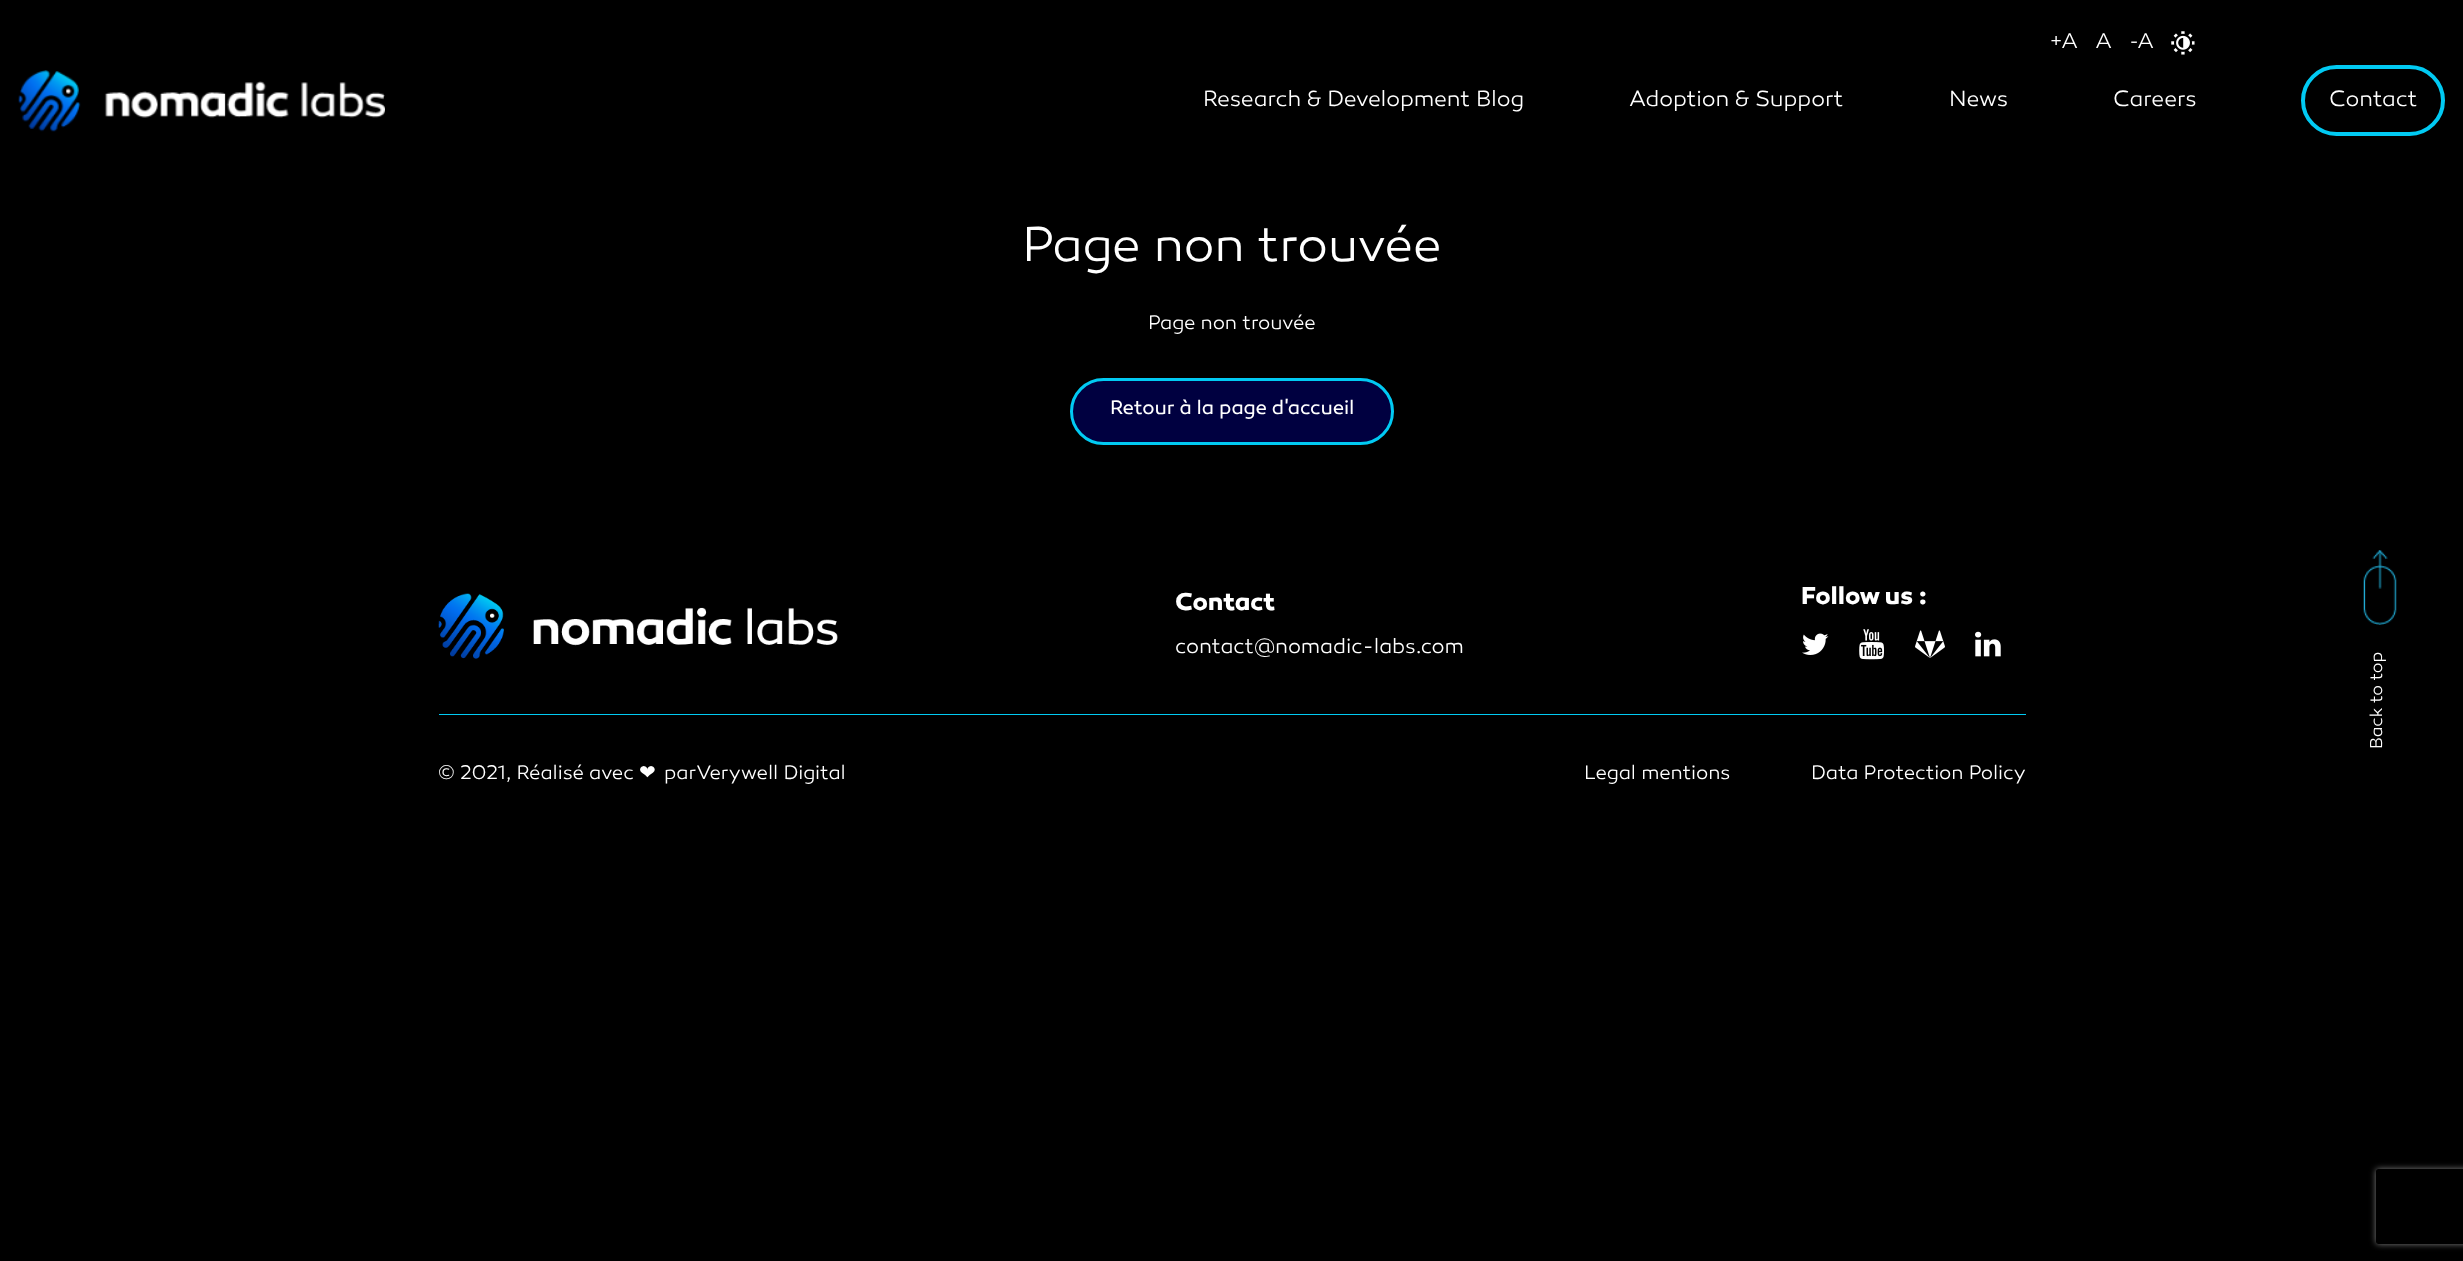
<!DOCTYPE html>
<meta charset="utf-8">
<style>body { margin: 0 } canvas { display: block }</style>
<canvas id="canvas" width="2463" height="1261"></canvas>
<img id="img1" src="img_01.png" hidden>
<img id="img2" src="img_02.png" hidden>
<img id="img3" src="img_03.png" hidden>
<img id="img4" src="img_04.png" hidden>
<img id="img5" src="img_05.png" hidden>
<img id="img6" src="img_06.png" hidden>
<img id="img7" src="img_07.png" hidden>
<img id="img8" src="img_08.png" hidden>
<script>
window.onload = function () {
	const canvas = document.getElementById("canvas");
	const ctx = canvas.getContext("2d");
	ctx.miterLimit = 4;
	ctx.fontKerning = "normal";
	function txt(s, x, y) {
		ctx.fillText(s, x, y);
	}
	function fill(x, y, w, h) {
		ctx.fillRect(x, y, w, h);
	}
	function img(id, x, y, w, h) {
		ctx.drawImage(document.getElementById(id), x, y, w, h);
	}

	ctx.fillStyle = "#000000";
	fill(0, 0, 2463, 1261);
	img("img1", 2171, 31, 24, 24);
	img("img2", 18, 70, 367, 62);
	ctx.beginPath();
	ctx.roundRect(2303, 67, 140, 67, 33.5);
	ctx.strokeStyle = "#01CAF3";
	ctx.lineWidth = 4;
	ctx.stroke();
	ctx.fillStyle = "#000040";
	ctx.beginPath();
	ctx.roundRect(1071.5, 379.5, 321, 64, 32);
	ctx.fill();
	ctx.lineWidth = 3;
	ctx.stroke();
	ctx.fillStyle = "#01CAF3";
	fill(439, 714, 1587, 1);
	img("img3", 438, 593, 400, 66);
	img("img4", 1802, 633, 27, 22);
	img("img5", 1859, 629, 25, 31);
	img("img6", 1915, 630, 30, 28);
	img("img7", 1975, 631, 26, 26);
	img("img8", 2363, 550, 34, 75);
	ctx.save();
	ctx.beginPath();
	ctx.moveTo(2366, 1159);
	ctx.lineTo(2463, 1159);
	ctx.lineTo(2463, 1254);
	ctx.lineTo(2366, 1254);
	ctx.closePath();
	ctx.moveTo(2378.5, 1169);
	ctx.lineTo(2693.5, 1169);
	ctx.bezierCurveTo(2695, 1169, 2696, 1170, 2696, 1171.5);
	ctx.lineTo(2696, 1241.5);
	ctx.bezierCurveTo(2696, 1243, 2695, 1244, 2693.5, 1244);
	ctx.lineTo(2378.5, 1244);
	ctx.bezierCurveTo(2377, 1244, 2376, 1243, 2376, 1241.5);
	ctx.lineTo(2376, 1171.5);
	ctx.bezierCurveTo(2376, 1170, 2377, 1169, 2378.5, 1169);
	ctx.closePath();
	ctx.clip("evenodd");
	ctx.fillStyle = "#808080";
	ctx.filter = "blur(3px)";
	ctx.beginPath();
	ctx.roundRect(2376, 1169, 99, 75, 2.5);
	ctx.fill();
	ctx.filter = "none";
	ctx.restore();
	ctx.font = "100 21.25px Montserrat";
	ctx.fillStyle = "#FFFFFF";
	txt("+", 2050, 48);
	txt("A", 2062, 48);
	txt("A", 2096, 48);
	txt("-", 2130, 48);
	txt("A", 2138, 48);
	ctx.font = "300 22.5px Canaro";
	txt("Research & Development Blog", 1203, 106);
	txt("Adoption & Support", 1629, 106);
	txt("News", 1949, 106);
	txt("Careers", 2113, 106);
	txt("Contact", 2329, 106);
	ctx.font = "300 50px Canaro";
	txt("Page non trouvée", 1022, 261);
	ctx.font = "300 20px Canaro";
	txt("Page non trouvée", 1148, 329);
	ctx.font = "20px Canaro";
	txt("Retour à la page d'accueil", 1110, 414);
	ctx.font = "bold 25px Canaro";
	txt("Contact", 1175, 610);
	ctx.font = "300 21.25px Canaro";
	txt("contact@nomadic-labs.com", 1175, 653);
	ctx.font = "bold 25px Canaro";
	txt("Follow us :", 1801, 604);
	ctx.font = "300 20px Canaro";
	txt("© 2021, Réalisé avec", 438, 779);
	ctx.font = "20px DejaVu Sans";
	txt("❤", 639, 779);
	ctx.font = "300 20px Canaro";
	txt("parVerywell Digital", 664, 779);
	txt("Legal mentions", 1584, 779);
	txt("Data Protection Policy", 1811, 779);
	ctx.font = "300 17.5px Canaro";
	ctx.save();
	ctx.translate(2382, 749);
	ctx.rotate(-90 * Math.PI / 180);
	ctx.fillText("Back to top", 0, 0);
	ctx.restore();
};
</script>
